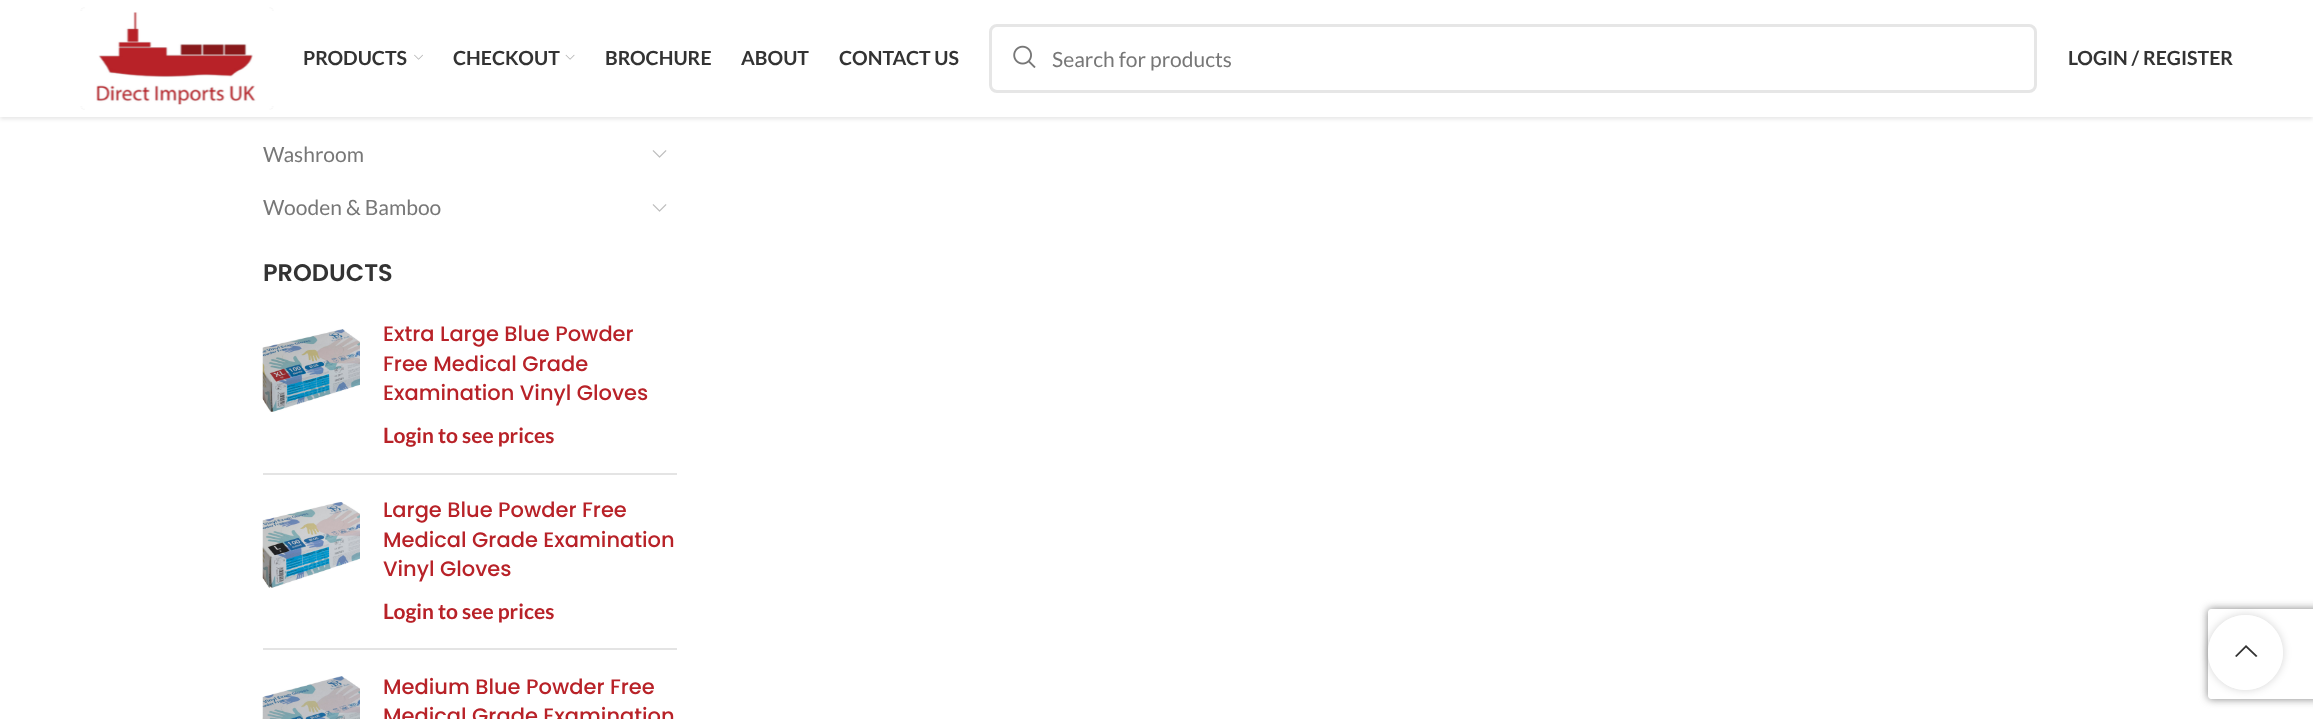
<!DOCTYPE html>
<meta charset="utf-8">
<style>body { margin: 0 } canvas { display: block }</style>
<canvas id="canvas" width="2313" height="719"></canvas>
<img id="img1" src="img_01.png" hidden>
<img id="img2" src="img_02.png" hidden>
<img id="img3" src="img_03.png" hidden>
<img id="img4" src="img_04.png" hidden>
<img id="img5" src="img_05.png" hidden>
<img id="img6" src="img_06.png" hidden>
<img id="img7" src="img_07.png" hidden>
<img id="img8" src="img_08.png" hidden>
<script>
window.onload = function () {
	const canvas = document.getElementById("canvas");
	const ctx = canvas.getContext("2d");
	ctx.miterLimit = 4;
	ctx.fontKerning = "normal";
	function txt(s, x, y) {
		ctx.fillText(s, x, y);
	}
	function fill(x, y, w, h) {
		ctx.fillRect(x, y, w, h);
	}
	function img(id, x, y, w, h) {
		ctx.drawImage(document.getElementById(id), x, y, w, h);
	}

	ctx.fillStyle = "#FFFFFF";
	fill(0, 0, 2313, 719);
	ctx.fillStyle = "rgba(0, 0, 0, 0.1)";
	ctx.filter = "blur(2px)";
	ctx.beginPath();
	ctx.rect(0, 2, 2313, 117);
	ctx.fill();
	ctx.filter = "none";
	ctx.fillStyle = "#FFFFFF";
	fill(0, 0, 2313, 117);
	img("img1", 80, 7, 194, 103);
	img("img2", 414, 54, 9, 6);
	img("img3", 565, 54, 10, 6);
	ctx.beginPath();
	ctx.roundRect(990.5, 25.5, 1045, 66, 6.5);
	ctx.strokeStyle = "#E6E6E6";
	ctx.lineWidth = 3;
	ctx.stroke();
	img("img4", 1013, 45, 23, 23);
	ctx.beginPath();
	ctx.moveTo(1014, 67.5);
	ctx.bezierCurveTo(1009, 62.5, 1009, 54.5, 1014, 49.5);
	ctx.strokeStyle = "#FFFFFF";
	ctx.lineWidth = 1.5;
	ctx.stroke();
	img("img5", 652, 150, 15, 8);
	img("img5", 652, 204, 15, 8);
	ctx.fillStyle = "#E4E4E4";
	fill(263, 473, 414, 2);
	img("img6", 262, 329, 98, 83);
	fill(263, 648, 414, 2);
	img("img7", 262, 502, 98, 86);
	img("img8", 262, 676, 98, 43);
	ctx.save();
	ctx.beginPath();
	ctx.moveTo(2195, 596);
	ctx.lineTo(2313, 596);
	ctx.lineTo(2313, 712);
	ctx.lineTo(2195, 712);
	ctx.closePath();
	ctx.moveTo(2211, 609);
	ctx.lineTo(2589, 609);
	ctx.bezierCurveTo(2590.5, 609, 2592, 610.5, 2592, 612);
	ctx.lineTo(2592, 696);
	ctx.bezierCurveTo(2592, 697.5, 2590.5, 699, 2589, 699);
	ctx.lineTo(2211, 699);
	ctx.bezierCurveTo(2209.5, 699, 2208, 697.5, 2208, 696);
	ctx.lineTo(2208, 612);
	ctx.bezierCurveTo(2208, 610.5, 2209.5, 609, 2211, 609);
	ctx.closePath();
	ctx.clip("evenodd");
	ctx.fillStyle = "#808080";
	ctx.filter = "blur(4px)";
	ctx.beginPath();
	ctx.roundRect(2208, 609, 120, 90, 3);
	ctx.fill();
	ctx.filter = "none";
	ctx.restore();
	ctx.save();
	ctx.beginPath();
	ctx.moveTo(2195, 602);
	ctx.lineTo(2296, 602);
	ctx.lineTo(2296, 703);
	ctx.lineTo(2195, 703);
	ctx.closePath();
	ctx.moveTo(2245.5, 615);
	ctx.bezierCurveTo(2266, 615, 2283, 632, 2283, 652.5);
	ctx.bezierCurveTo(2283, 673, 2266, 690, 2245.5, 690);
	ctx.bezierCurveTo(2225, 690, 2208, 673, 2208, 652.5);
	ctx.bezierCurveTo(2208, 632, 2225, 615, 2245.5, 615);
	ctx.closePath();
	ctx.clip("evenodd");
	ctx.fillStyle = "rgba(0, 0, 0, 0.17)";
	ctx.filter = "blur(4px)";
	ctx.beginPath();
	ctx.roundRect(2208, 615, 75, 75, 37.5);
	ctx.fill();
	ctx.filter = "none";
	ctx.restore();
	ctx.fillStyle = "rgba(255, 255, 255, 0.9)";
	ctx.beginPath();
	ctx.arc(2245.5, 652.5, 37.5, 0, Math.PI * 2);
	ctx.fill();
	ctx.fillStyle = "#333333";
	ctx.beginPath();
	ctx.moveTo(2256, 657);
	ctx.lineTo(2257.5, 656);
	ctx.lineTo(2246, 645);
	ctx.lineTo(2235, 656);
	ctx.lineTo(2236.5, 657);
	ctx.lineTo(2246, 647.5);
	ctx.closePath();
	ctx.fill();
	ctx.font = "bold 19.5px Lato";
	txt("PRODUCTS", 303, 65);
	txt("CHECKOUT", 453, 65);
	txt("BROCHURE", 605, 65);
	txt("ABOUT", 741, 65);
	txt("CONTACT US", 839, 65);
	ctx.font = "21px Lato";
	ctx.fillStyle = "#777777";
	txt("Search for products", 1052, 67);
	ctx.font = "bold 19.5px Lato";
	ctx.fillStyle = "#333333";
	txt("LOGIN / REGISTER", 2068, 65);
	ctx.font = "21px Lato";
	ctx.fillStyle = "#777777";
	txt("Washroom", 263, 162);
	txt("Wooden & Bamboo", 263, 215);
	ctx.font = "600 24px Poppins";
	ctx.fillStyle = "#333333";
	txt("PRODUCTS", 263, 281);
	ctx.font = "500 21px Poppins";
	ctx.fillStyle = "#B82228";
	txt("Extra Large Blue Powder", 383, 341);
	txt("Free Medical Grade", 383, 371);
	txt("Examination Vinyl Gloves", 383, 400);
	ctx.font = "bold 21px Lato";
	txt("Login to see prices", 383, 443);
	ctx.font = "500 21px Poppins";
	txt("Large Blue Powder Free", 383, 517);
	txt("Medical Grade Examination", 383, 547);
	txt("Vinyl Gloves", 383, 576);
	ctx.font = "bold 21px Lato";
	txt("Login to see prices", 383, 619);
	ctx.font = "500 21px Poppins";
	txt("Medium Blue Powder Free", 383, 694);
	txt("Medical Grade Examination", 383, 723);
};
</script>
